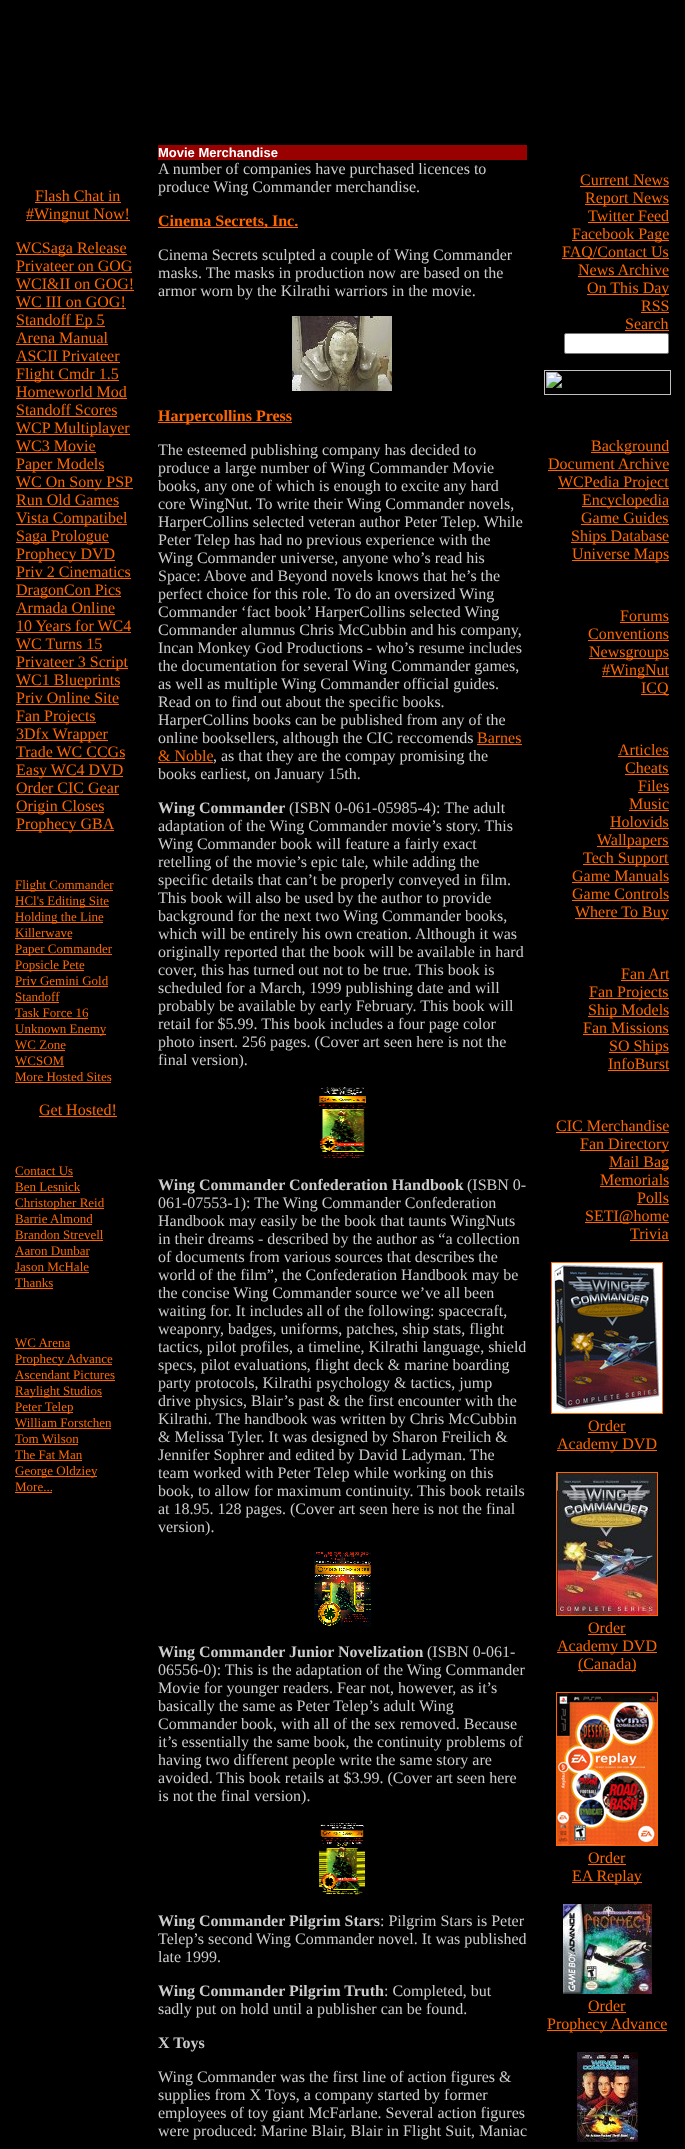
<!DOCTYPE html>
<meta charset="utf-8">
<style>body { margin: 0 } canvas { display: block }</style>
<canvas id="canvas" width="685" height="2149"></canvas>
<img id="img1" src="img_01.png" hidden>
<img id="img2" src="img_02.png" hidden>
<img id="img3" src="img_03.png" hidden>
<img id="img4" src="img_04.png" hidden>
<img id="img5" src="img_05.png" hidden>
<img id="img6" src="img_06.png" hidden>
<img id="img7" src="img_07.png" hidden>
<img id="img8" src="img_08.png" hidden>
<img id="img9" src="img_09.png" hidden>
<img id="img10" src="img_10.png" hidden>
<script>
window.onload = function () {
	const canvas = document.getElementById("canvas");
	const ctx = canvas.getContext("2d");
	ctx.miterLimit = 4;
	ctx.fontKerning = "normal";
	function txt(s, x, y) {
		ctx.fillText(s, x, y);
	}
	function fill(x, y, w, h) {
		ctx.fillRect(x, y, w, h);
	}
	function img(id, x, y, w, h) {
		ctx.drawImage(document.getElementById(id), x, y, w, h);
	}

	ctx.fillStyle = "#000000";
	fill(0, 0, 685, 2149);
	ctx.fillStyle = "#FF6600";
	fill(35, 202, 86, 1);
	fill(26, 220, 104, 1);
	fill(16, 254, 111, 1);
	fill(16, 272, 116, 1);
	fill(16, 290, 118, 1);
	fill(16, 308, 110, 1);
	fill(16, 326, 89, 1);
	fill(16, 344, 92, 1);
	fill(16, 362, 104, 1);
	fill(16, 380, 103, 1);
	fill(16, 398, 111, 1);
	fill(16, 416, 101, 1);
	fill(16, 434, 114, 1);
	fill(16, 452, 80, 1);
	fill(16, 470, 88, 1);
	fill(16, 488, 117, 1);
	fill(16, 506, 103, 1);
	fill(16, 524, 111, 1);
	fill(16, 542, 93, 1);
	fill(16, 560, 99, 1);
	fill(16, 578, 115, 1);
	fill(16, 596, 105, 1);
	fill(16, 614, 99, 1);
	fill(16, 632, 115, 1);
	fill(16, 650, 86, 1);
	fill(16, 668, 112, 1);
	fill(16, 686, 104, 1);
	fill(16, 704, 103, 1);
	fill(16, 722, 80, 1);
	fill(16, 740, 92, 1);
	fill(16, 758, 109, 1);
	fill(16, 776, 107, 1);
	fill(16, 794, 103, 1);
	fill(16, 812, 88, 1);
	fill(16, 830, 98, 1);
	fill(15, 890, 98, 1);
	fill(15, 906, 94, 1);
	fill(15, 922, 88, 1);
	fill(15, 938, 57, 1);
	fill(15, 954, 97, 1);
	fill(15, 970, 69, 1);
	fill(15, 986, 93, 1);
	fill(15, 1002, 44, 1);
	fill(15, 1018, 73, 1);
	fill(15, 1034, 91, 1);
	fill(15, 1050, 50, 1);
	fill(15, 1066, 49, 1);
	fill(15, 1082, 96, 1);
	fill(39, 1116, 78, 1);
	fill(15, 1176, 58, 1);
	fill(15, 1192, 65, 1);
	fill(15, 1208, 89, 1);
	fill(15, 1224, 77, 1);
	fill(15, 1240, 88, 1);
	fill(15, 1256, 74, 1);
	fill(15, 1272, 74, 1);
	fill(15, 1288, 38, 1);
	fill(15, 1348, 55, 1);
	fill(15, 1364, 97, 1);
	fill(15, 1380, 100, 1);
	fill(15, 1396, 87, 1);
	fill(15, 1412, 58, 1);
	fill(15, 1428, 96, 1);
	fill(15, 1444, 63, 1);
	fill(15, 1460, 67, 1);
	fill(15, 1476, 82, 1);
	fill(15, 1492, 37, 1);
	ctx.fillStyle = "#990000";
	fill(158, 145, 369, 15);
	ctx.fillStyle = "#FF6600";
	fill(158, 227, 140, 1);
	img("img1", 292, 316, 100, 75);
	fill(158, 422, 134, 1);
	fill(477, 744, 45, 1);
	fill(158, 762, 55, 1);
	img("img2", 319, 1087, 47, 71);
	img("img3", 314, 1552, 57, 75);
	img("img4", 319, 1823, 46, 72);
	fill(580, 186, 89, 1);
	fill(585, 204, 84, 1);
	fill(588, 222, 81, 1);
	fill(572, 240, 97, 1);
	fill(562, 258, 107, 1);
	fill(578, 276, 91, 1);
	fill(587, 294, 82, 1);
	fill(641, 312, 28, 1);
	fill(625, 330, 44, 1);
	ctx.fillStyle = "#FFFFFF";
	ctx.beginPath();
	ctx.roundRect(564.5, 333.5, 104, 20, 1.5);
	ctx.fill();
	ctx.strokeStyle = "#767676";
	ctx.stroke();
	img("img5", 544, 370, 127, 25);
	ctx.fillStyle = "#FF6600";
	fill(591, 452, 78, 1);
	fill(548, 470, 121, 1);
	fill(558, 488, 111, 1);
	fill(582, 506, 87, 1);
	fill(581, 524, 88, 1);
	fill(571, 542, 98, 1);
	fill(572, 560, 97, 1);
	fill(620, 622, 49, 1);
	fill(588, 640, 81, 1);
	fill(589, 658, 80, 1);
	fill(602, 676, 67, 1);
	fill(641, 694, 28, 1);
	fill(618, 756, 51, 1);
	fill(625, 774, 44, 1);
	fill(638, 792, 31, 1);
	fill(629, 810, 40, 1);
	fill(610, 828, 59, 1);
	fill(597, 846, 72, 1);
	fill(583, 864, 86, 1);
	fill(572, 882, 97, 1);
	fill(572, 900, 97, 1);
	fill(575, 918, 94, 1);
	fill(621, 980, 48, 1);
	fill(589, 998, 80, 1);
	fill(588, 1016, 81, 1);
	fill(583, 1034, 86, 1);
	fill(609, 1052, 60, 1);
	fill(608, 1070, 61, 1);
	fill(556, 1132, 113, 1);
	fill(580, 1150, 89, 1);
	fill(609, 1168, 60, 1);
	fill(600, 1186, 69, 1);
	fill(637, 1204, 32, 1);
	fill(585, 1222, 84, 1);
	fill(630, 1240, 39, 1);
	ctx.strokeStyle = "#FF6600";
	ctx.strokeRect(551.5, 1262.5, 111, 151);
	img("img6", 552, 1263, 110, 150);
	fill(588, 1432, 38, 1);
	fill(557, 1450, 100, 1);
	ctx.strokeRect(556.5, 1472.5, 101, 143);
	img("img7", 557, 1473, 100, 142);
	fill(588, 1634, 38, 1);
	fill(557, 1652, 100, 1);
	fill(578, 1670, 58, 1);
	ctx.strokeRect(556.5, 1692.5, 101, 153);
	img("img8", 557, 1693, 100, 152);
	fill(588, 1864, 38, 1);
	fill(572, 1882, 70, 1);
	img("img9", 563, 1904, 89, 90);
	fill(588, 2012, 38, 1);
	fill(547, 2030, 120, 1);
	img("img10", 577, 2052, 61, 90);
	ctx.font = "16px Liberation Serif";
	txt("Flash Chat in", 35, 201);
	txt("#Wingnut Now!", 26, 219);
	txt("WCSaga Release", 16, 253);
	txt("Privateer on GOG", 16, 271);
	txt("WCI&II on GOG!", 16, 289);
	txt("WC III on GOG!", 16, 307);
	txt("Standoff Ep 5", 16, 325);
	txt("Arena Manual", 16, 343);
	txt("ASCII Privateer", 16, 361);
	txt("Flight Cmdr 1.5", 16, 379);
	txt("Homeworld Mod", 16, 397);
	txt("Standoff Scores", 16, 415);
	txt("WCP Multiplayer", 16, 433);
	txt("WC3 Movie", 16, 451);
	txt("Paper Models", 16, 469);
	txt("WC On Sony PSP", 16, 487);
	txt("Run Old Games", 16, 505);
	txt("Vista Compatibel", 16, 523);
	txt("Saga Prologue", 16, 541);
	txt("Prophecy DVD", 16, 559);
	txt("Priv 2 Cinematics", 16, 577);
	txt("DragonCon Pics", 16, 595);
	txt("Armada Online", 16, 613);
	txt("10 Years for WC4", 16, 631);
	txt("WC Turns 15", 16, 649);
	txt("Privateer 3 Script", 16, 667);
	txt("WC1 Blueprints", 16, 685);
	txt("Priv Online Site", 16, 703);
	txt("Fan Projects", 16, 721);
	txt("3Dfx Wrapper", 16, 739);
	txt("Trade WC CCGs", 16, 757);
	txt("Easy WC4 DVD", 16, 775);
	txt("Order CIC Gear", 16, 793);
	txt("Origin Closes", 16, 811);
	txt("Prophecy GBA", 16, 829);
	ctx.font = "13px Liberation Serif";
	txt("Flight Commander", 15, 889);
	txt("HCl's Editing Site", 15, 905);
	txt("Holding the Line", 15, 921);
	txt("Killerwave", 15, 937);
	txt("Paper Commander", 15, 953);
	txt("Popsicle Pete", 15, 969);
	txt("Priv Gemini Gold", 15, 985);
	txt("Standoff", 15, 1001);
	txt("Task Force 16", 15, 1017);
	txt("Unknown Enemy", 15, 1033);
	txt("WC Zone", 15, 1049);
	txt("WCSOM", 15, 1065);
	txt("More Hosted Sites", 15, 1081);
	ctx.font = "16px Liberation Serif";
	txt("Get Hosted!", 39, 1115);
	ctx.font = "13px Liberation Serif";
	txt("Contact Us", 15, 1175);
	txt("Ben Lesnick", 15, 1191);
	txt("Christopher Reid", 15, 1207);
	txt("Barrie Almond", 15, 1223);
	txt("Brandon Strevell", 15, 1239);
	txt("Aaron Dunbar", 15, 1255);
	txt("Jason McHale", 15, 1271);
	txt("Thanks", 15, 1287);
	txt("WC Arena", 15, 1347);
	txt("Prophecy Advance", 15, 1363);
	txt("Ascendant Pictures", 15, 1379);
	txt("Raylight Studios", 15, 1395);
	txt("Peter Telep", 15, 1411);
	txt("William Forstchen", 15, 1427);
	txt("Tom Wilson", 15, 1443);
	txt("The Fat Man", 15, 1459);
	txt("George Oldziey", 15, 1475);
	txt("More...", 15, 1491);
	ctx.font = "bold 13px Liberation Sans";
	ctx.fillStyle = "#FFFFFF";
	txt("Movie Merchandise", 158, 157);
	ctx.font = "16px Liberation Serif";
	ctx.fillStyle = "#CCCCCC";
	txt("A number of companies have purchased licences to", 158, 174);
	txt("produce Wing Commander merchandise.", 158, 192);
	ctx.font = "bold 16px Liberation Serif";
	ctx.fillStyle = "#FF6600";
	txt("Cinema Secrets, Inc.", 158, 226);
	ctx.font = "16px Liberation Serif";
	ctx.fillStyle = "#CCCCCC";
	txt("Cinema Secrets sculpted a couple of Wing Commander", 158, 260);
	txt("masks. The masks in production now are based on the", 158, 278);
	txt("armor worn by the Kilrathi warriors in the movie.", 158, 296);
	ctx.font = "bold 16px Liberation Serif";
	ctx.fillStyle = "#FF6600";
	txt("Harpercollins Press", 158, 421);
	ctx.font = "16px Liberation Serif";
	ctx.fillStyle = "#CCCCCC";
	txt("The esteemed publishing company has decided to", 158, 455);
	txt("produce a large number of Wing Commander Movie", 158, 473);
	txt("books, any one of which is enough to excite any hard", 158, 491);
	txt("core WingNut. To write their Wing Commander novels,", 158, 509);
	txt("HarperCollins selected veteran author Peter Telep. While", 158, 527);
	txt("Peter Telep has had no previous experience with the", 158, 545);
	txt("Wing Commander universe, anyone who’s read his", 158, 563);
	txt("Space: Above and Beyond novels knows that he’s the", 158, 581);
	txt("perfect choice for this role. To do an oversized Wing", 158, 599);
	txt("Commander ‘fact book’ HarperCollins selected Wing", 158, 617);
	txt("Commander alumnus Chris McCubbin and his company,", 158, 635);
	txt("Incan Monkey God Productions - who’s resume includes", 158, 653);
	txt("the documentation for several Wing Commander games,", 158, 671);
	txt("as well as multiple Wing Commander official guides.", 158, 689);
	txt("Read on to find out about the specific books.", 158, 707);
	txt("HarperCollins books can be published from any of the", 158, 725);
	txt("online booksellers, although the CIC reccomends", 158, 743);
	ctx.fillStyle = "#FF6600";
	txt("Barnes", 477, 743);
	txt("& Noble", 158, 761);
	ctx.fillStyle = "#CCCCCC";
	txt(", as that they are the compay promising the", 213, 761);
	txt("books earliest, on January 15th.", 158, 779);
	ctx.font = "bold 16px Liberation Serif";
	txt("Wing Commander", 158, 813);
	ctx.font = "16px Liberation Serif";
	txt("(ISBN 0-061-05985-4): The adult", 289, 813);
	txt("adaptation of the Wing Commander movie’s story. This", 158, 831);
	txt("Wing Commander book will feature a fairly exact", 158, 849);
	txt("retelling of the movie’s epic tale, while adding the", 158, 867);
	txt("specific details that can’t be properly conveyed in film.", 158, 885);
	txt("This book will also be used by the author to provide", 158, 903);
	txt("background for the next two Wing Commander books,", 158, 921);
	txt("which will be entirely his own creation. Although it was", 158, 939);
	txt("originally reported that the book will be available in hard", 158, 957);
	txt("cover, this has turned out not to be true. This book is", 158, 975);
	txt("scheduled for a March, 1999 publishing date and will", 158, 993);
	txt("probably be available by early February. This book will", 158, 1011);
	txt("retail for $5.99. This book includes a four page color", 158, 1029);
	txt("photo insert. 256 pages. (Cover art seen here is not the", 158, 1047);
	txt("final version).", 158, 1065);
	ctx.font = "bold 16px Liberation Serif";
	txt("Wing Commander Confederation Handbook", 158, 1190);
	ctx.font = "16px Liberation Serif";
	txt("(ISBN 0-", 467, 1190);
	txt("061-07553-1): The Wing Commander Confederation", 158, 1208);
	txt("Handbook may easily be the book that taunts WingNuts", 158, 1226);
	txt("in their dreams - described by the author as “a collection", 158, 1244);
	txt("of documents from various sources that describes the", 158, 1262);
	txt("world of the film”, the Confederation Handbook may be", 158, 1280);
	txt("the concise Wing Commander source we’ve all been", 158, 1298);
	txt("waiting for. It includes all of the following: spacecraft,", 158, 1316);
	txt("weaponry, badges, uniforms, patches, ship stats, flight", 158, 1334);
	txt("tactics, pilot profiles, a timeline, Kilrathi language, shield", 158, 1352);
	txt("specs, pilot evaluations, flight deck & marine boarding", 158, 1370);
	txt("party protocols, Kilrathi psychology & tactics, jump", 158, 1388);
	txt("drive physics, Blair’s past & the first encounter with the", 158, 1406);
	txt("Kilrathi. The handbook was written by Chris McCubbin", 158, 1424);
	txt("& Melissa Tyler. It was designed by Sharon Freilich &", 158, 1442);
	txt("Jennifer Sophrer and edited by David Ladyman. The", 158, 1460);
	txt("team worked with Peter Telep while working on this", 158, 1478);
	txt("book, to allow for maximum continuity. This book retails", 158, 1496);
	txt("at 18.95. 128 pages. (Cover art seen here is not the final", 158, 1514);
	txt("version).", 158, 1532);
	ctx.font = "bold 16px Liberation Serif";
	txt("Wing Commander Junior Novelization", 158, 1657);
	ctx.font = "16px Liberation Serif";
	txt("(ISBN 0-061-", 427, 1657);
	txt("06556-0): This is the adaptation of the Wing Commander", 158, 1675);
	txt("Movie for younger readers. Fear not, however, as it’s", 158, 1693);
	txt("basically the same as Peter Telep’s adult Wing", 158, 1711);
	txt("Commander book, with all of the sex removed. Because", 158, 1729);
	txt("it’s essentially the same book, the continuity problems of", 158, 1747);
	txt("having two different people write the same story are", 158, 1765);
	txt("avoided. This book retails at $3.99. (Cover art seen here", 158, 1783);
	txt("is not the final version).", 158, 1801);
	ctx.font = "bold 16px Liberation Serif";
	txt("Wing Commander Pilgrim Stars", 158, 1926);
	ctx.font = "16px Liberation Serif";
	txt(": Pilgrim Stars is Peter", 380, 1926);
	txt("Telep’s second Wing Commander novel. It was published", 158, 1944);
	txt("late 1999.", 158, 1962);
	ctx.font = "bold 16px Liberation Serif";
	txt("Wing Commander Pilgrim Truth", 158, 1996);
	ctx.font = "16px Liberation Serif";
	txt(": Completed, but", 384, 1996);
	txt("sadly put on hold until a publisher can be found.", 158, 2014);
	ctx.font = "bold 16px Liberation Serif";
	txt("X Toys", 158, 2048);
	ctx.font = "16px Liberation Serif";
	txt("Wing Commander was the first line of action figures &", 158, 2082);
	txt("supplies from X Toys, a company started by former", 158, 2100);
	txt("employees of toy giant McFarlane. Several action figures", 158, 2118);
	txt("were produced: Marine Blair, Blair in Flight Suit, Maniac", 158, 2136);
	ctx.fillStyle = "#FF6600";
	txt("Current News", 580, 185);
	txt("Report News", 585, 203);
	txt("Twitter Feed", 588, 221);
	txt("Facebook Page", 572, 239);
	txt("FAQ/Contact Us", 562, 257);
	txt("News Archive", 578, 275);
	txt("On This Day", 587, 293);
	txt("RSS", 641, 311);
	txt("Search", 625, 329);
	txt("Background", 591, 451);
	txt("Document Archive", 548, 469);
	txt("WCPedia Project", 558, 487);
	txt("Encyclopedia", 582, 505);
	txt("Game Guides", 581, 523);
	txt("Ships Database", 571, 541);
	txt("Universe Maps", 572, 559);
	txt("Forums", 620, 621);
	txt("Conventions", 588, 639);
	txt("Newsgroups", 589, 657);
	txt("#WingNut", 602, 675);
	txt("ICQ", 641, 693);
	txt("Articles", 618, 755);
	txt("Cheats", 625, 773);
	txt("Files", 638, 791);
	txt("Music", 629, 809);
	txt("Holovids", 610, 827);
	txt("Wallpapers", 597, 845);
	txt("Tech Support", 583, 863);
	txt("Game Manuals", 572, 881);
	txt("Game Controls", 572, 899);
	txt("Where To Buy", 575, 917);
	txt("Fan Art", 621, 979);
	txt("Fan Projects", 589, 997);
	txt("Ship Models", 588, 1015);
	txt("Fan Missions", 583, 1033);
	txt("SO Ships", 609, 1051);
	txt("InfoBurst", 608, 1069);
	txt("CIC Merchandise", 556, 1131);
	txt("Fan Directory", 580, 1149);
	txt("Mail Bag", 609, 1167);
	txt("Memorials", 600, 1185);
	txt("Polls", 637, 1203);
	txt("SETI@home", 585, 1221);
	txt("Trivia", 630, 1239);
	txt("Order", 588, 1431);
	txt("Academy DVD", 557, 1449);
	txt("Order", 588, 1633);
	txt("Academy DVD", 557, 1651);
	txt("(Canada)", 578, 1669);
	txt("Order", 588, 1863);
	txt("EA Replay", 572, 1881);
	txt("Order", 588, 2011);
	txt("Prophecy Advance", 547, 2029);
};
</script>
